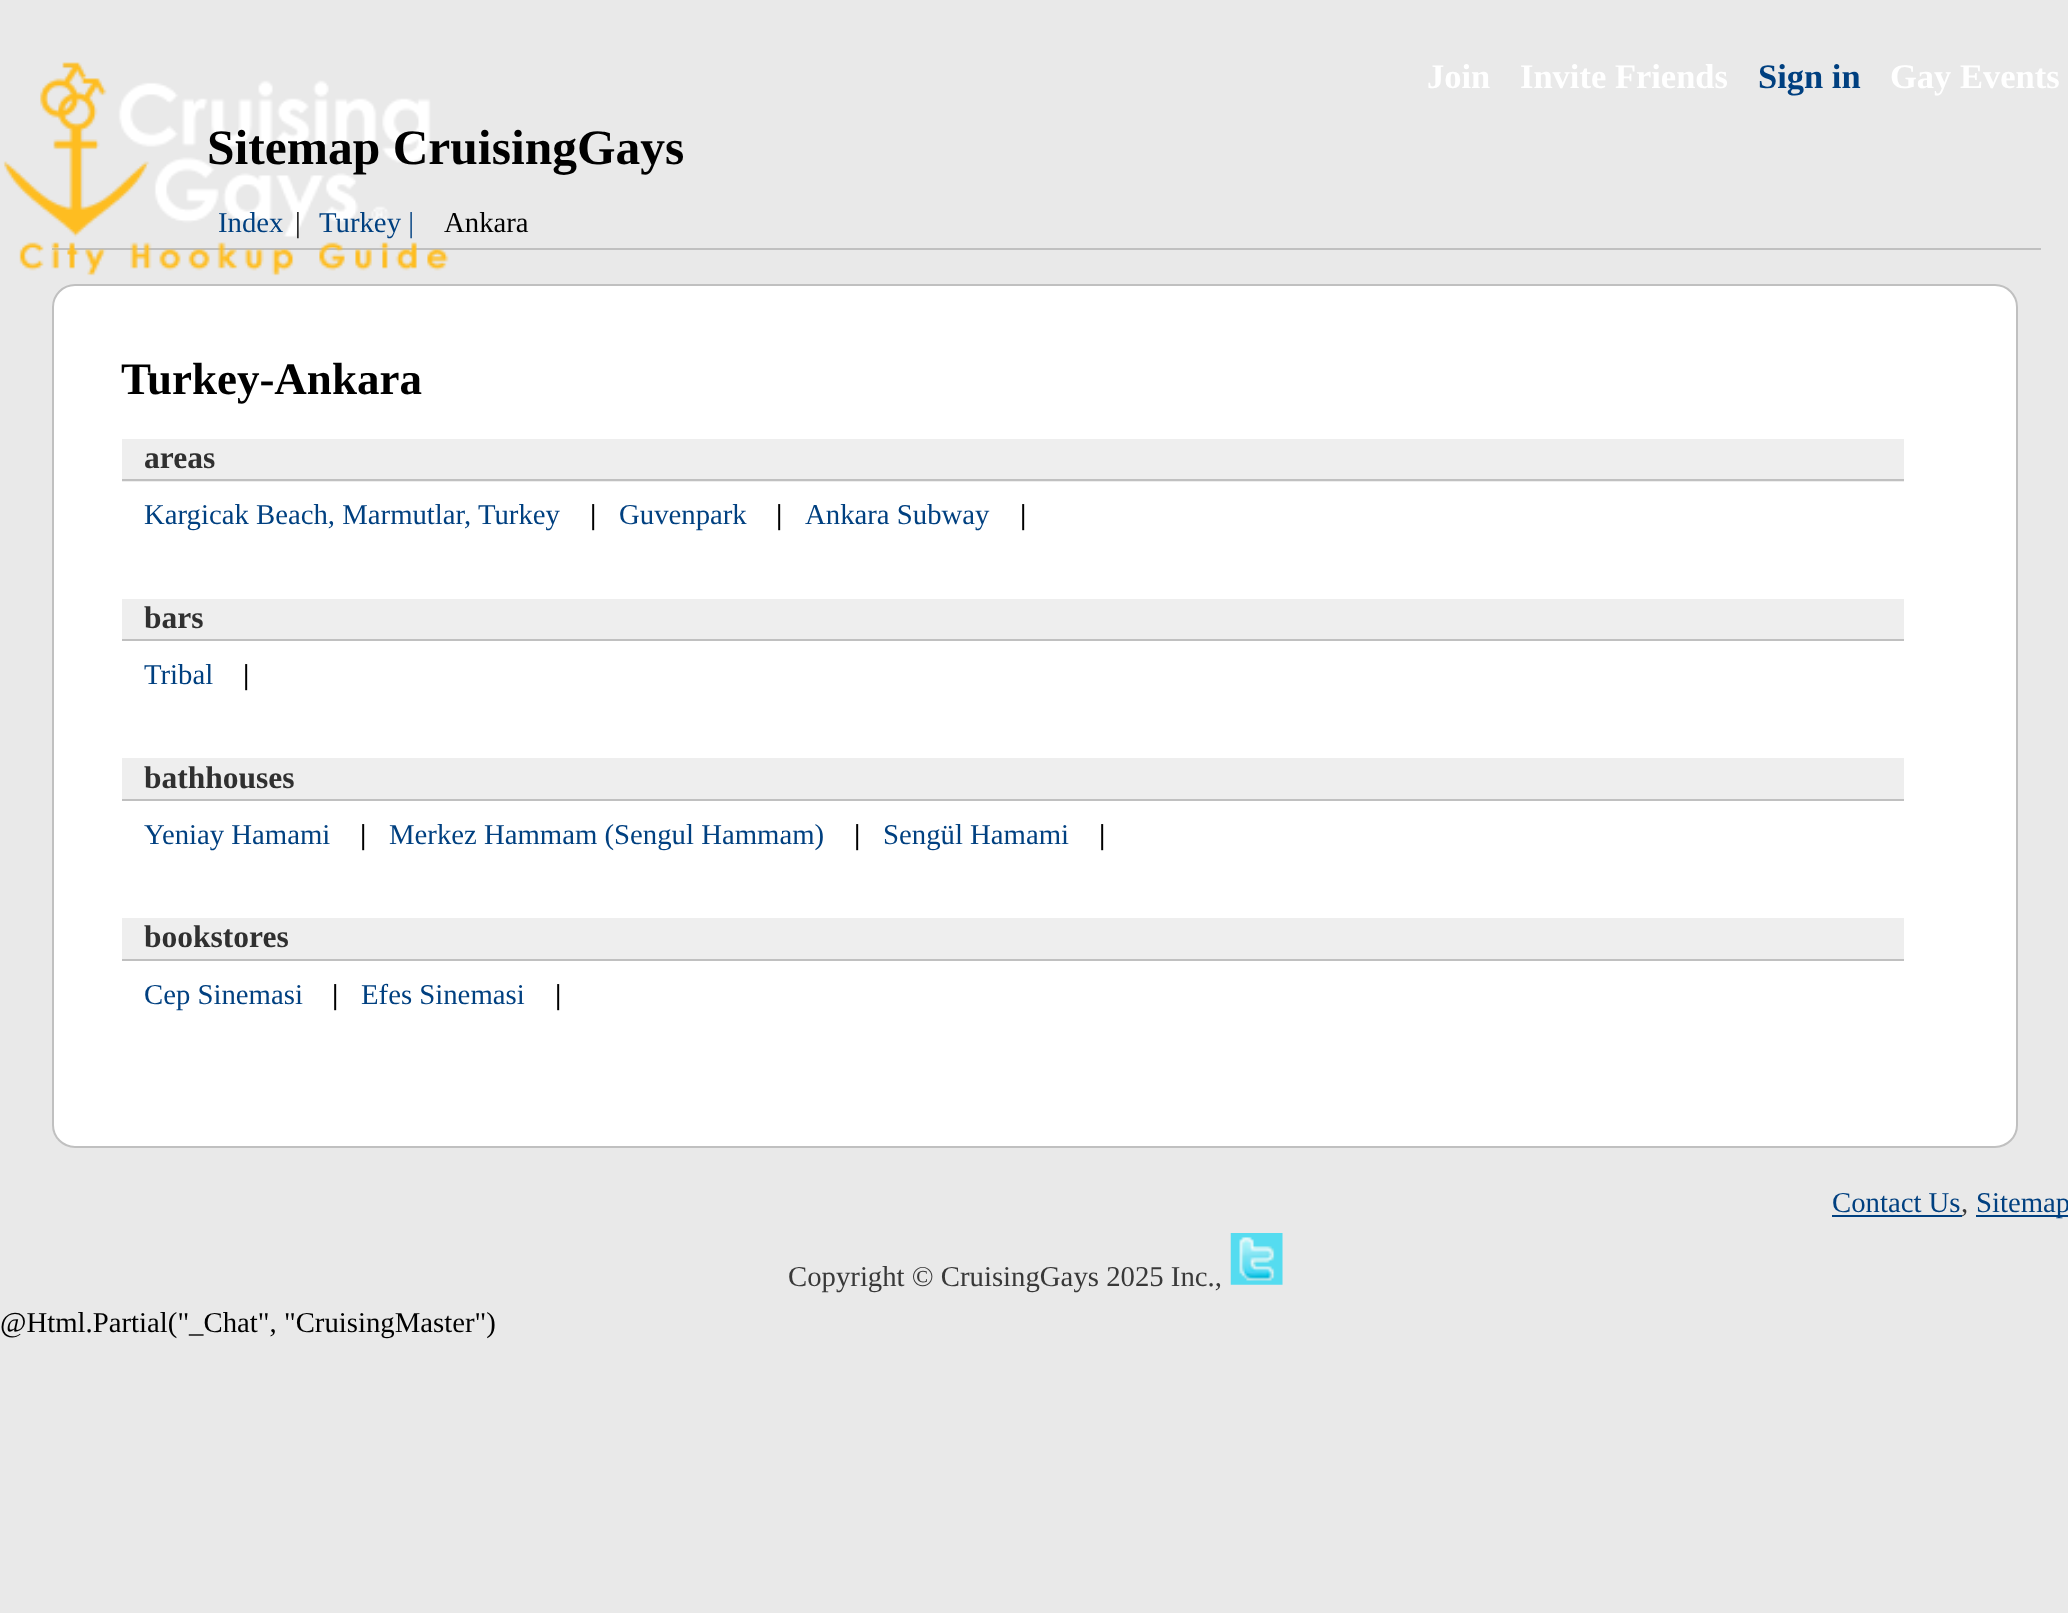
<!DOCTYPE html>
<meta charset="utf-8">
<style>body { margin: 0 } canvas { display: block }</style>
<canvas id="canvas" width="2068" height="1613"></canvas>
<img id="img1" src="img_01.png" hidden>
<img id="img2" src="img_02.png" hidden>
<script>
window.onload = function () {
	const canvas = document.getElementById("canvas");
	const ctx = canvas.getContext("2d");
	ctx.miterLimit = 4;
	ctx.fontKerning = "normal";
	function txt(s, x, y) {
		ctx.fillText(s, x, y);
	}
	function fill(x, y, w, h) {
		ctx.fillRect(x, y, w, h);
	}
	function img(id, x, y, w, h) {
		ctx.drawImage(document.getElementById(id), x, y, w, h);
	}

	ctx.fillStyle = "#E9E9E9";
	fill(0, 0, 2068, 1613);
	ctx.fillStyle = "#C0C0C0";
	fill(52, 248, 1989, 2);
	img("img1", 3, 62, 446, 214);
	ctx.fillStyle = "#FFFFFF";
	ctx.beginPath();
	ctx.roundRect(53, 285, 1964, 862, 22);
	ctx.fill();
	ctx.strokeStyle = "#C0C0C0";
	ctx.lineWidth = 2;
	ctx.stroke();
	ctx.fillStyle = "#EEEEEE";
	fill(122, 439, 1782, 43);
	ctx.fillStyle = "#C0C0C0";
	fill(122, 479, 1782, 2);
	ctx.fillStyle = "#EEEEEE";
	fill(122, 599, 1782, 40);
	ctx.fillStyle = "#C0C0C0";
	fill(122, 639, 1782, 2);
	ctx.fillStyle = "#EEEEEE";
	fill(122, 758, 1782, 41);
	ctx.fillStyle = "#C0C0C0";
	fill(122, 799, 1782, 2);
	ctx.fillStyle = "#EEEEEE";
	fill(122, 918, 1782, 41);
	ctx.fillStyle = "#C0C0C0";
	fill(122, 959, 1782, 2);
	ctx.fillStyle = "#004080";
	fill(1832, 1215, 130, 2);
	fill(1976, 1215, 92, 2);
	img("img2", 1230, 1233, 53, 52);
	ctx.font = "bold 34.5px Liberation Serif";
	ctx.fillStyle = "#FFFFFF";
	txt("Join", 1427, 88);
	txt("Invite Friends", 1520, 88);
	ctx.fillStyle = "#004080";
	txt("Sign in", 1758, 88);
	ctx.fillStyle = "#FFFFFF";
	txt("Gay Events", 1890, 88);
	ctx.font = "bold 49.5px Liberation Serif";
	ctx.fillStyle = "#000000";
	txt("Sitemap CruisingGays", 207, 164);
	ctx.font = "28.75px Liberation Serif";
	ctx.fillStyle = "#004080";
	txt("Index", 218, 232);
	ctx.fillStyle = "#000000";
	txt("|", 295, 232);
	ctx.fillStyle = "#004080";
	txt("Turkey |", 319, 232);
	ctx.fillStyle = "#000000";
	txt("Ankara", 444, 232);
	ctx.font = "bold 45px Liberation Serif";
	txt("Turkey-Ankara", 121, 394);
	ctx.font = "bold 31.5px Liberation Serif";
	ctx.fillStyle = "#303030";
	txt("areas", 144, 468);
	ctx.font = "28.75px Liberation Serif";
	ctx.fillStyle = "#004080";
	txt("Kargicak Beach, Marmutlar, Turkey", 144, 524);
	ctx.font = "bold 28.75px Liberation Serif";
	ctx.fillStyle = "#000000";
	txt("|", 590, 524);
	ctx.font = "28.75px Liberation Serif";
	ctx.fillStyle = "#004080";
	txt("Guvenpark", 619, 524);
	ctx.font = "bold 28.75px Liberation Serif";
	ctx.fillStyle = "#000000";
	txt("|", 776, 524);
	ctx.font = "28.75px Liberation Serif";
	ctx.fillStyle = "#004080";
	txt("Ankara Subway", 805, 524);
	ctx.font = "bold 28.75px Liberation Serif";
	ctx.fillStyle = "#000000";
	txt("|", 1020, 524);
	ctx.font = "bold 31.5px Liberation Serif";
	ctx.fillStyle = "#303030";
	txt("bars", 144, 628);
	ctx.font = "28.75px Liberation Serif";
	ctx.fillStyle = "#004080";
	txt("Tribal", 144, 684);
	ctx.font = "bold 28.75px Liberation Serif";
	ctx.fillStyle = "#000000";
	txt("|", 243, 684);
	ctx.font = "bold 31.5px Liberation Serif";
	ctx.fillStyle = "#303030";
	txt("bathhouses", 144, 788);
	ctx.font = "28.75px Liberation Serif";
	ctx.fillStyle = "#004080";
	txt("Yeniay Hamami", 144, 844);
	ctx.font = "bold 28.75px Liberation Serif";
	ctx.fillStyle = "#000000";
	txt("|", 360, 844);
	ctx.font = "28.75px Liberation Serif";
	ctx.fillStyle = "#004080";
	txt("Merkez Hammam (Sengul Hammam)", 389, 844);
	ctx.font = "bold 28.75px Liberation Serif";
	ctx.fillStyle = "#000000";
	txt("|", 854, 844);
	ctx.font = "28.75px Liberation Serif";
	ctx.fillStyle = "#004080";
	txt("Sengül Hamami", 883, 844);
	ctx.font = "bold 28.75px Liberation Serif";
	ctx.fillStyle = "#000000";
	txt("|", 1099, 844);
	ctx.font = "bold 31.5px Liberation Serif";
	ctx.fillStyle = "#303030";
	txt("bookstores", 144, 947);
	ctx.font = "28.75px Liberation Serif";
	ctx.fillStyle = "#004080";
	txt("Cep Sinemasi", 144, 1004);
	ctx.font = "bold 28.75px Liberation Serif";
	ctx.fillStyle = "#000000";
	txt("|", 332, 1004);
	ctx.font = "28.75px Liberation Serif";
	ctx.fillStyle = "#004080";
	txt("Efes Sinemasi", 361, 1004);
	ctx.font = "bold 28.75px Liberation Serif";
	ctx.fillStyle = "#000000";
	txt("|", 555, 1004);
	ctx.font = "28.75px Liberation Serif";
	ctx.fillStyle = "#004080";
	txt("Contact Us", 1832, 1212);
	ctx.fillStyle = "#393939";
	txt(",", 1961, 1212);
	ctx.fillStyle = "#004080";
	txt("Sitemap", 1976, 1212);
	ctx.fillStyle = "#393939";
	txt("Copyright © CruisingGays 2025 Inc.,", 788, 1286);
	ctx.fillStyle = "#000000";
	txt("@Html.Partial(\"_Chat\", \"CruisingMaster\")", 0, 1332);
};
</script>
